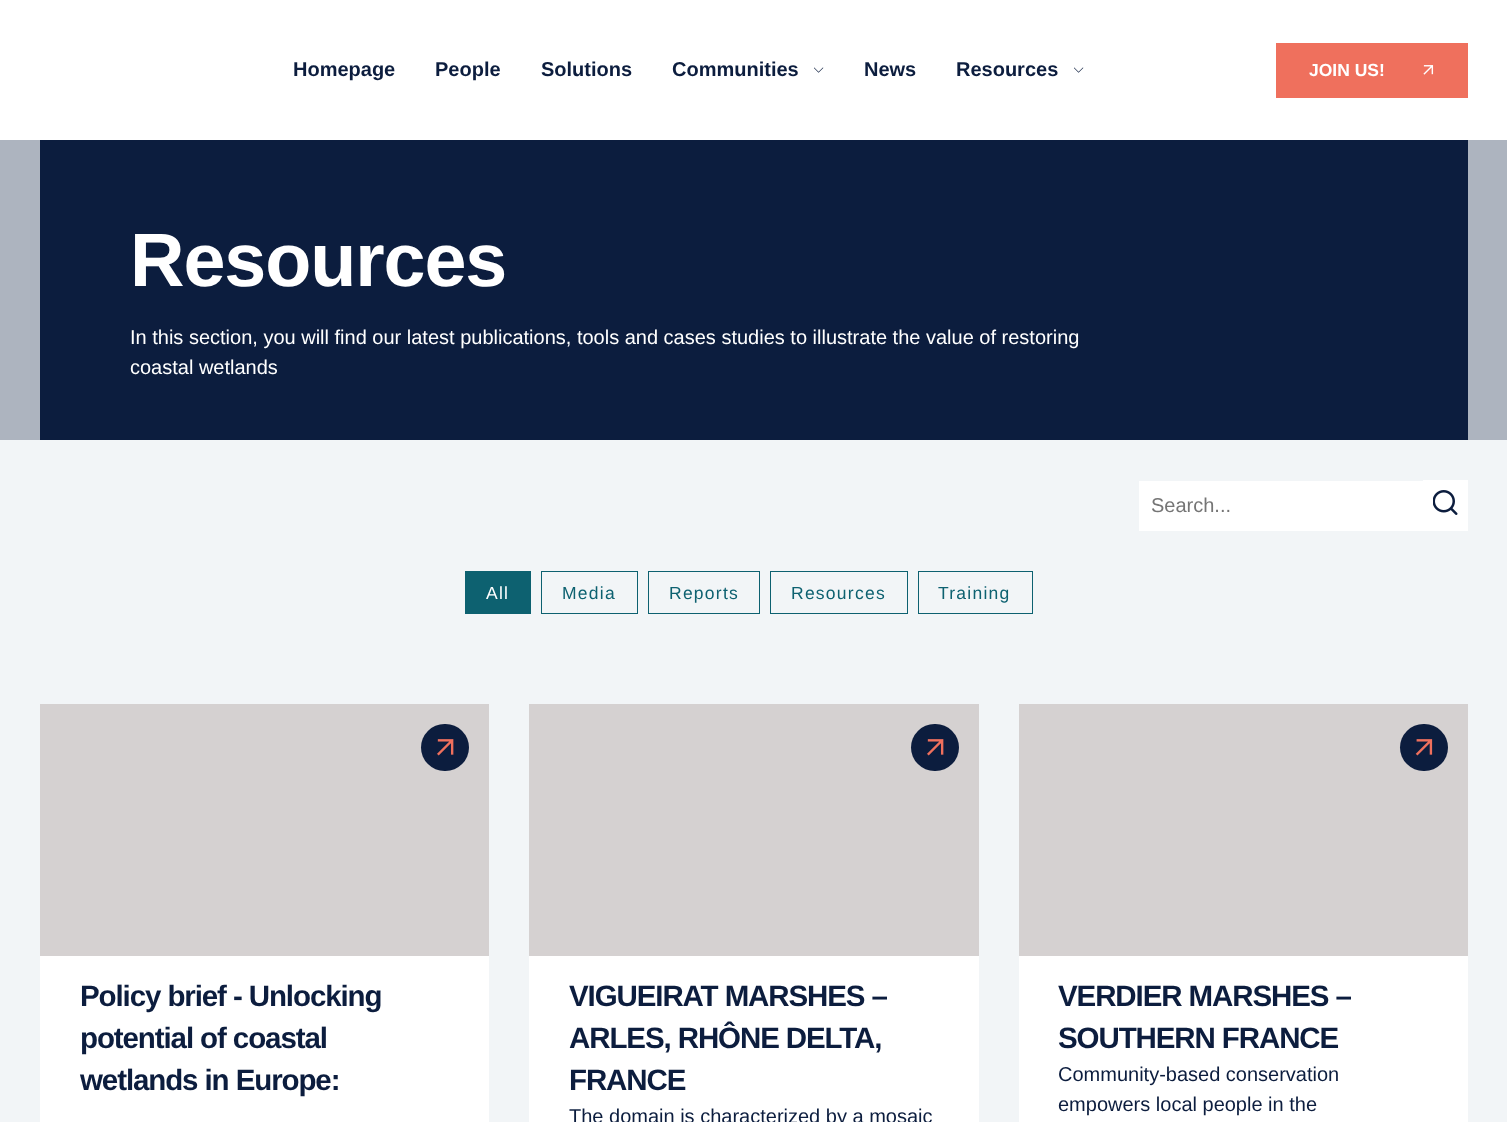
<!DOCTYPE html>
<meta charset="utf-8">
<style>body { margin: 0 } canvas { display: block }</style>
<canvas id="canvas" width="1507" height="1122"></canvas>
<img id="img1" src="img_01.png" hidden>
<img id="img2" src="img_02.png" hidden>
<img id="img3" src="img_03.png" hidden>
<img id="img4" src="img_04.png" hidden>
<img id="img5" src="img_05.png" hidden>
<script>
window.onload = function () {
	const canvas = document.getElementById("canvas");
	const ctx = canvas.getContext("2d");
	ctx.miterLimit = 4;
	ctx.fontKerning = "normal";
	function txt(s, x, y) {
		ctx.fillText(s, x, y);
	}
	function fill(x, y, w, h) {
		ctx.fillRect(x, y, w, h);
	}
	function round(x, y, w, h, r) {
		ctx.beginPath();
		ctx.roundRect(x, y, w, h, r);
		ctx.fill();
	}
	function img(id, x, y, w, h) {
		ctx.drawImage(document.getElementById(id), x, y, w, h);
	}

	ctx.fillStyle = "#F2F5F7";
	fill(0, 0, 1507, 1122);
	ctx.fillStyle = "#ADB4BF";
	fill(0, 140, 1507, 300);
	ctx.fillStyle = "#FFFFFF";
	fill(0, 0, 1507, 140);
	img("img1", 814, 67, 10, 6);
	img("img1", 1074, 67, 10, 6);
	ctx.fillStyle = "#EF705D";
	fill(1276, 43, 192, 55);
	img("img2", 1423, 65, 11, 10);
	ctx.fillStyle = "#0C1D3E";
	fill(40, 140, 1428, 300);
	ctx.fillStyle = "#FFFFFF";
	fill(1139, 481, 284, 50);
	fill(1423, 480, 45, 51);
	img("img3", 1433, 490, 25, 25);
	ctx.fillStyle = "#0D6170";
	fill(465, 571, 66, 43);
	ctx.strokeStyle = "#0D6170";
	ctx.strokeRect(541.5, 571.5, 96, 42);
	ctx.strokeRect(648.5, 571.5, 111, 42);
	ctx.strokeRect(770.5, 571.5, 137, 42);
	ctx.strokeRect(918.5, 571.5, 114, 42);
	ctx.fillStyle = "#D5D1D1";
	fill(40, 704, 449, 252);
	ctx.fillStyle = "#0C1D3E";
	round(421, 724, 48, 47, 23.5);
	img("img4", 437, 739, 17, 17);
	ctx.fillStyle = "#FFFFFF";
	fill(40, 956, 449, 166);
	ctx.fillStyle = "#D5D1D1";
	fill(529, 704, 450, 252);
	ctx.fillStyle = "#0C1D3E";
	round(911, 724, 48, 47, 23.5);
	img("img4", 927, 739, 17, 17);
	ctx.fillStyle = "#FFFFFF";
	fill(529, 956, 450, 166);
	ctx.fillStyle = "#D5D1D1";
	fill(1019, 704, 449, 252);
	ctx.fillStyle = "#0C1D3E";
	round(1400, 724, 48, 47, 23.5);
	img("img5", 1415, 739, 18, 17);
	ctx.fillStyle = "#FFFFFF";
	fill(1019, 956, 449, 166);
	ctx.font = "bold 20px Liberation Sans";
	ctx.fillStyle = "#0C1D3E";
	txt("Homepage", 293, 76);
	txt("People", 435, 76);
	txt("Solutions", 541, 76);
	txt("Communities", 672, 76);
	txt("News", 864, 76);
	txt("Resources", 956, 76);
	ctx.font = "bold 17.5px Liberation Sans";
	ctx.fillStyle = "#FFFFFF";
	txt("JOIN US!", 1309, 76);
	ctx.letterSpacing = "-1.1px";
	ctx.font = "bold 75.5px Liberation Sans";
	txt("Resources", 130, 286);
	ctx.letterSpacing = "0px";
	ctx.font = "20px Liberation Sans";
	txt("In this section, you will find our latest publications, tools and cases studies to illustrate the value of restoring", 130, 344);
	txt("coastal wetlands", 130, 374);
	ctx.fillStyle = "#757575";
	txt("Search...", 1151, 512);
	ctx.letterSpacing = "1.25px";
	ctx.font = "17.5px Liberation Sans";
	ctx.fillStyle = "#FFFFFF";
	txt("All", 486, 599);
	ctx.fillStyle = "#0D6170";
	txt("Media", 562, 599);
	txt("Reports", 669, 599);
	txt("Resources", 791, 599);
	txt("Training", 938, 599);
	ctx.letterSpacing = "-1.1px";
	ctx.font = "bold 29.5px Liberation Sans";
	ctx.fillStyle = "#0C1D3E";
	txt("Policy brief - Unlocking", 80, 1006);
	txt("potential of coastal", 80, 1048);
	txt("wetlands in Europe:", 80, 1090);
	txt("VIGUEIRAT MARSHES –", 569, 1006);
	txt("ARLES, RHÔNE DELTA,", 569, 1048);
	txt("FRANCE", 569, 1090);
	ctx.letterSpacing = "0px";
	ctx.font = "20px Liberation Sans";
	txt("The domain is characterized by a mosaic", 569, 1123);
	ctx.letterSpacing = "-1.1px";
	ctx.font = "bold 29.5px Liberation Sans";
	txt("VERDIER MARSHES –", 1058, 1006);
	txt("SOUTHERN FRANCE", 1058, 1048);
	ctx.letterSpacing = "0px";
	ctx.font = "20px Liberation Sans";
	txt("Community-based conservation", 1058, 1081);
	txt("empowers local people in the", 1058, 1111);
};
</script>
